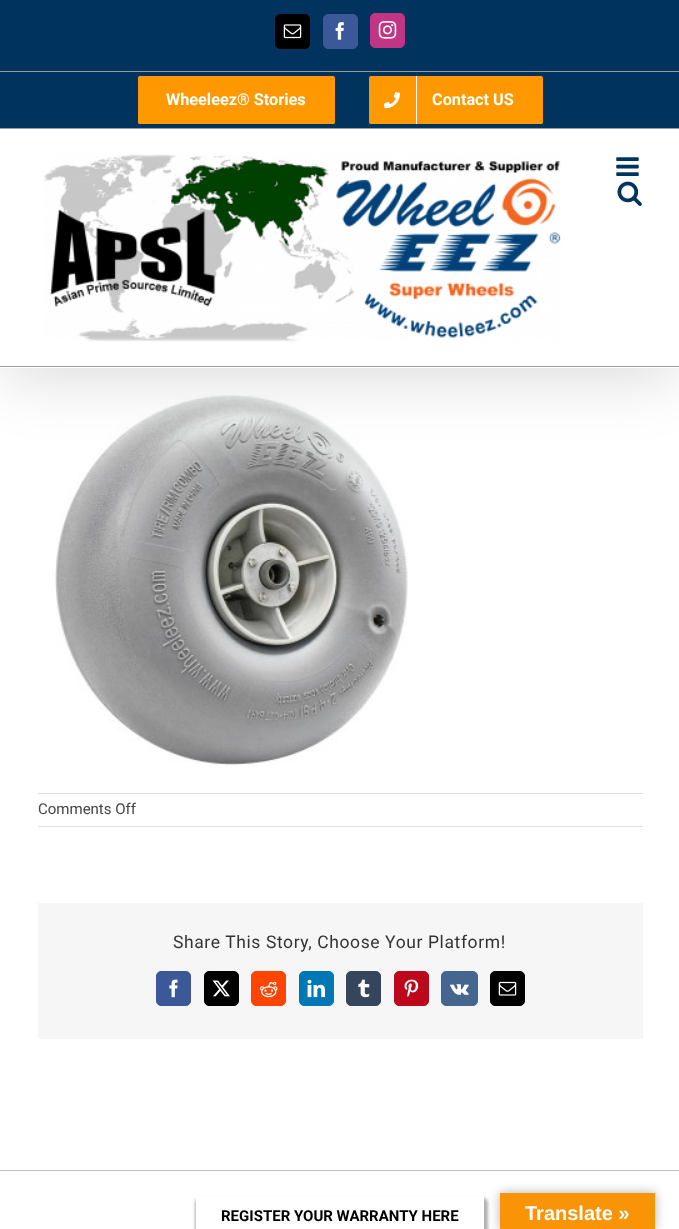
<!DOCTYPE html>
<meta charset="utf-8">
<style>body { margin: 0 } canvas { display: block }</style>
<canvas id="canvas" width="679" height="1229"></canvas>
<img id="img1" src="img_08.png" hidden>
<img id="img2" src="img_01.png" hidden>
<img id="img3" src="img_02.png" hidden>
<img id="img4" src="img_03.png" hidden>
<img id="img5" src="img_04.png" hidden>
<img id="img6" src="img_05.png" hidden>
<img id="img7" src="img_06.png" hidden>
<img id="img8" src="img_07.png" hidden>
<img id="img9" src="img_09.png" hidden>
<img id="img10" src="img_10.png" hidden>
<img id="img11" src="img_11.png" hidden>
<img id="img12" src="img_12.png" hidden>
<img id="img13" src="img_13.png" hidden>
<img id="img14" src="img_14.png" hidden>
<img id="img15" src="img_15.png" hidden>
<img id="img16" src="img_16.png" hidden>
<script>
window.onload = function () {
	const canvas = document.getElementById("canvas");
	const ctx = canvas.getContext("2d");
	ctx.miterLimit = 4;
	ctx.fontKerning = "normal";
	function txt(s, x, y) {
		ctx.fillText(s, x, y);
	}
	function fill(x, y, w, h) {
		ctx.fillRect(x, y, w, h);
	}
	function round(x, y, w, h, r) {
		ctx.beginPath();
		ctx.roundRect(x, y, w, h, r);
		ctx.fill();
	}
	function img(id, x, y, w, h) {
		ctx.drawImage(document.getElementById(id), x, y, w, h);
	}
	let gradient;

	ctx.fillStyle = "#FFFFFF";
	fill(0, 0, 679, 1229);
	img("img1", 55, 395, 353, 371);
	ctx.fillStyle = "rgba(0, 0, 0, 0.14)";
	ctx.filter = "blur(31px)";
	ctx.beginPath();
	ctx.rect(3, 15, 675, 363);
	ctx.fill();
	ctx.filter = "none";
	ctx.fillStyle = "#00335E";
	fill(0, 0, 679, 128);
	ctx.fillStyle = "#999999";
	fill(0, 128, 679, 1);
	fill(0, 71, 679, 1);
	ctx.fillStyle = "#000000";
	ctx.beginPath();
	ctx.roundRect(275.5, 14.5, 34, 34, 4.5);
	ctx.fill();
	ctx.strokeStyle = "#000000";
	ctx.stroke();
	img("img2", 283, 24, 19, 15);
	ctx.fillStyle = "#3B5998";
	ctx.beginPath();
	ctx.roundRect(323.5, 14.5, 34, 34, 4.5);
	ctx.fill();
	ctx.strokeStyle = "#3B5998";
	ctx.stroke();
	img("img3", 335, 22, 9, 18);
	ctx.fillStyle = "#C13584";
	ctx.beginPath();
	ctx.roundRect(370.5, 13.5, 34, 34, 4.5);
	ctx.fill();
	ctx.strokeStyle = "#C13584";
	ctx.stroke();
	img("img4", 378, 21, 19, 18);
	ctx.fillStyle = "#FF9800";
	round(138, 76, 197, 48, 2.5);
	gradient = ctx.createLinearGradient(236, 76, 236, 124);
	gradient.addColorStop(0, "#FF9800");
	gradient.addColorStop(1, "rgba(255, 153, 0, 0.99)");
	ctx.fillStyle = gradient;
	round(138, 76, 197, 48, 2.5);
	ctx.fillStyle = "#FF9800";
	round(369, 76, 174, 48, 2.5);
	gradient = ctx.createLinearGradient(456, 76, 456, 124);
	gradient.addColorStop(0, "#FF9800");
	gradient.addColorStop(1, "rgba(255, 153, 0, 0.99)");
	ctx.fillStyle = gradient;
	round(369, 76, 174, 48, 2.5);
	ctx.fillStyle = "#FFFFFF";
	fill(416, 76, 1, 48);
	img("img5", 383, 92, 17, 17);
	fill(0, 129, 679, 239);
	ctx.fillStyle = "#999999";
	fill(0, 366, 679, 1);
	img("img6", 43, 154, 518, 188);
	img("img7", 616, 157, 23, 19);
	img("img8", 617, 181, 25, 25);
	ctx.fillStyle = "#E0DEDE";
	fill(38, 793, 605, 1);
	fill(38, 826, 605, 1);
	ctx.fillStyle = "#F6F6F6";
	fill(38, 903, 605, 136);
	ctx.fillStyle = "#3B5998";
	ctx.beginPath();
	ctx.roundRect(156.5, 971.5, 34, 34, 4.5);
	ctx.fill();
	ctx.strokeStyle = "#3B5998";
	ctx.stroke();
	img("img9", 169, 979, 9, 19);
	ctx.fillStyle = "#000000";
	ctx.beginPath();
	ctx.roundRect(204.5, 971.5, 34, 34, 4.5);
	ctx.fill();
	ctx.strokeStyle = "#000000";
	ctx.stroke();
	img("img10", 212, 980, 18, 17);
	ctx.fillStyle = "#FF4500";
	ctx.beginPath();
	ctx.roundRect(251.5, 971.5, 34, 34, 4.5);
	ctx.fill();
	ctx.strokeStyle = "#FF4500";
	ctx.stroke();
	img("img11", 260, 981, 18, 17);
	ctx.fillStyle = "#0077B5";
	ctx.beginPath();
	ctx.roundRect(299.5, 971.5, 34, 34, 4.5);
	ctx.fill();
	ctx.strokeStyle = "#0077B5";
	ctx.stroke();
	img("img12", 307, 979, 18, 19);
	ctx.fillStyle = "#35465C";
	ctx.beginPath();
	ctx.roundRect(346.5, 971.5, 34, 34, 4.5);
	ctx.fill();
	ctx.strokeStyle = "#35465C";
	ctx.stroke();
	img("img13", 358, 979, 12, 19);
	ctx.fillStyle = "#BD081C";
	ctx.beginPath();
	ctx.roundRect(394.5, 971.5, 34, 34, 4.5);
	ctx.fill();
	ctx.strokeStyle = "#BD081C";
	ctx.stroke();
	img("img14", 404, 979, 15, 18);
	ctx.fillStyle = "#45668E";
	ctx.beginPath();
	ctx.roundRect(441.5, 971.5, 36, 34, 4.5);
	ctx.fill();
	ctx.strokeStyle = "#45668E";
	ctx.stroke();
	img("img15", 450, 984, 19, 11);
	ctx.fillStyle = "#000000";
	ctx.beginPath();
	ctx.roundRect(490.5, 971.5, 34, 34, 4.5);
	ctx.fill();
	ctx.strokeStyle = "#000000";
	ctx.stroke();
	img("img16", 498, 981, 19, 15);
	ctx.fillStyle = "#C1C1C1";
	fill(0, 1170, 679, 1);
	ctx.save();
	ctx.beginPath();
	ctx.moveTo(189, 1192);
	ctx.lineTo(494, 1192);
	ctx.lineTo(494, 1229);
	ctx.lineTo(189, 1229);
	ctx.closePath();
	ctx.moveTo(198.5, 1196);
	ctx.lineTo(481.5, 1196);
	ctx.bezierCurveTo(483, 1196, 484, 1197, 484, 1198.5);
	ctx.lineTo(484, 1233.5);
	ctx.bezierCurveTo(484, 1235, 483, 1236, 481.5, 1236);
	ctx.lineTo(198.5, 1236);
	ctx.bezierCurveTo(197, 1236, 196, 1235, 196, 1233.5);
	ctx.lineTo(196, 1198.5);
	ctx.bezierCurveTo(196, 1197, 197, 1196, 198.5, 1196);
	ctx.closePath();
	ctx.clip("evenodd");
	ctx.fillStyle = "rgba(0, 0, 0, 0.3)";
	ctx.filter = "blur(1.5px)";
	ctx.beginPath();
	ctx.roundRect(195, 1198, 293, 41, 5);
	ctx.fill();
	ctx.filter = "none";
	ctx.restore();
	ctx.fillStyle = "#FFFFFF";
	ctx.beginPath();
	ctx.moveTo(199, 1198);
	ctx.lineTo(481, 1198);
	ctx.bezierCurveTo(483, 1198, 484, 1199, 484, 1200);
	ctx.bezierCurveTo(484, 1198, 484, 1196, 482, 1196);
	ctx.lineTo(198, 1196);
	ctx.bezierCurveTo(196, 1196, 196, 1198, 196, 1200);
	ctx.bezierCurveTo(196, 1199, 197, 1198, 199, 1198);
	ctx.closePath();
	ctx.fill();
	ctx.fillStyle = "rgba(0, 0, 0, 0.3)";
	ctx.filter = "blur(5.5px)";
	ctx.beginPath();
	ctx.rect(500, 1193, 155, 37);
	ctx.fill();
	ctx.filter = "none";
	ctx.fillStyle = "#F89406";
	fill(500, 1193, 155, 36);
	ctx.font = "bold 16.25px Roboto";
	ctx.fillStyle = "#FFFFFF";
	txt("Wheeleez® Stories", 166, 105);
	txt("Contact US", 432, 105);
	ctx.font = "15px Roboto";
	ctx.fillStyle = "#444444";
	txt("Comments Off", 38, 814);
	ctx.letterSpacing = "0.6px";
	ctx.font = "17.5px Roboto";
	ctx.fillStyle = "#333333";
	txt("Share This Story, Choose Your Platform!", 173, 948);
	ctx.letterSpacing = "0px";
	ctx.font = "bold 15px Roboto";
	ctx.fillStyle = "#000000";
	txt("REGISTER YOUR WARRANTY HERE", 221, 1221);
	ctx.font = "bold 20px Liberation Sans";
	ctx.fillStyle = "#FFFFFF";
	txt("Translate »", 525, 1220);
};
</script>
